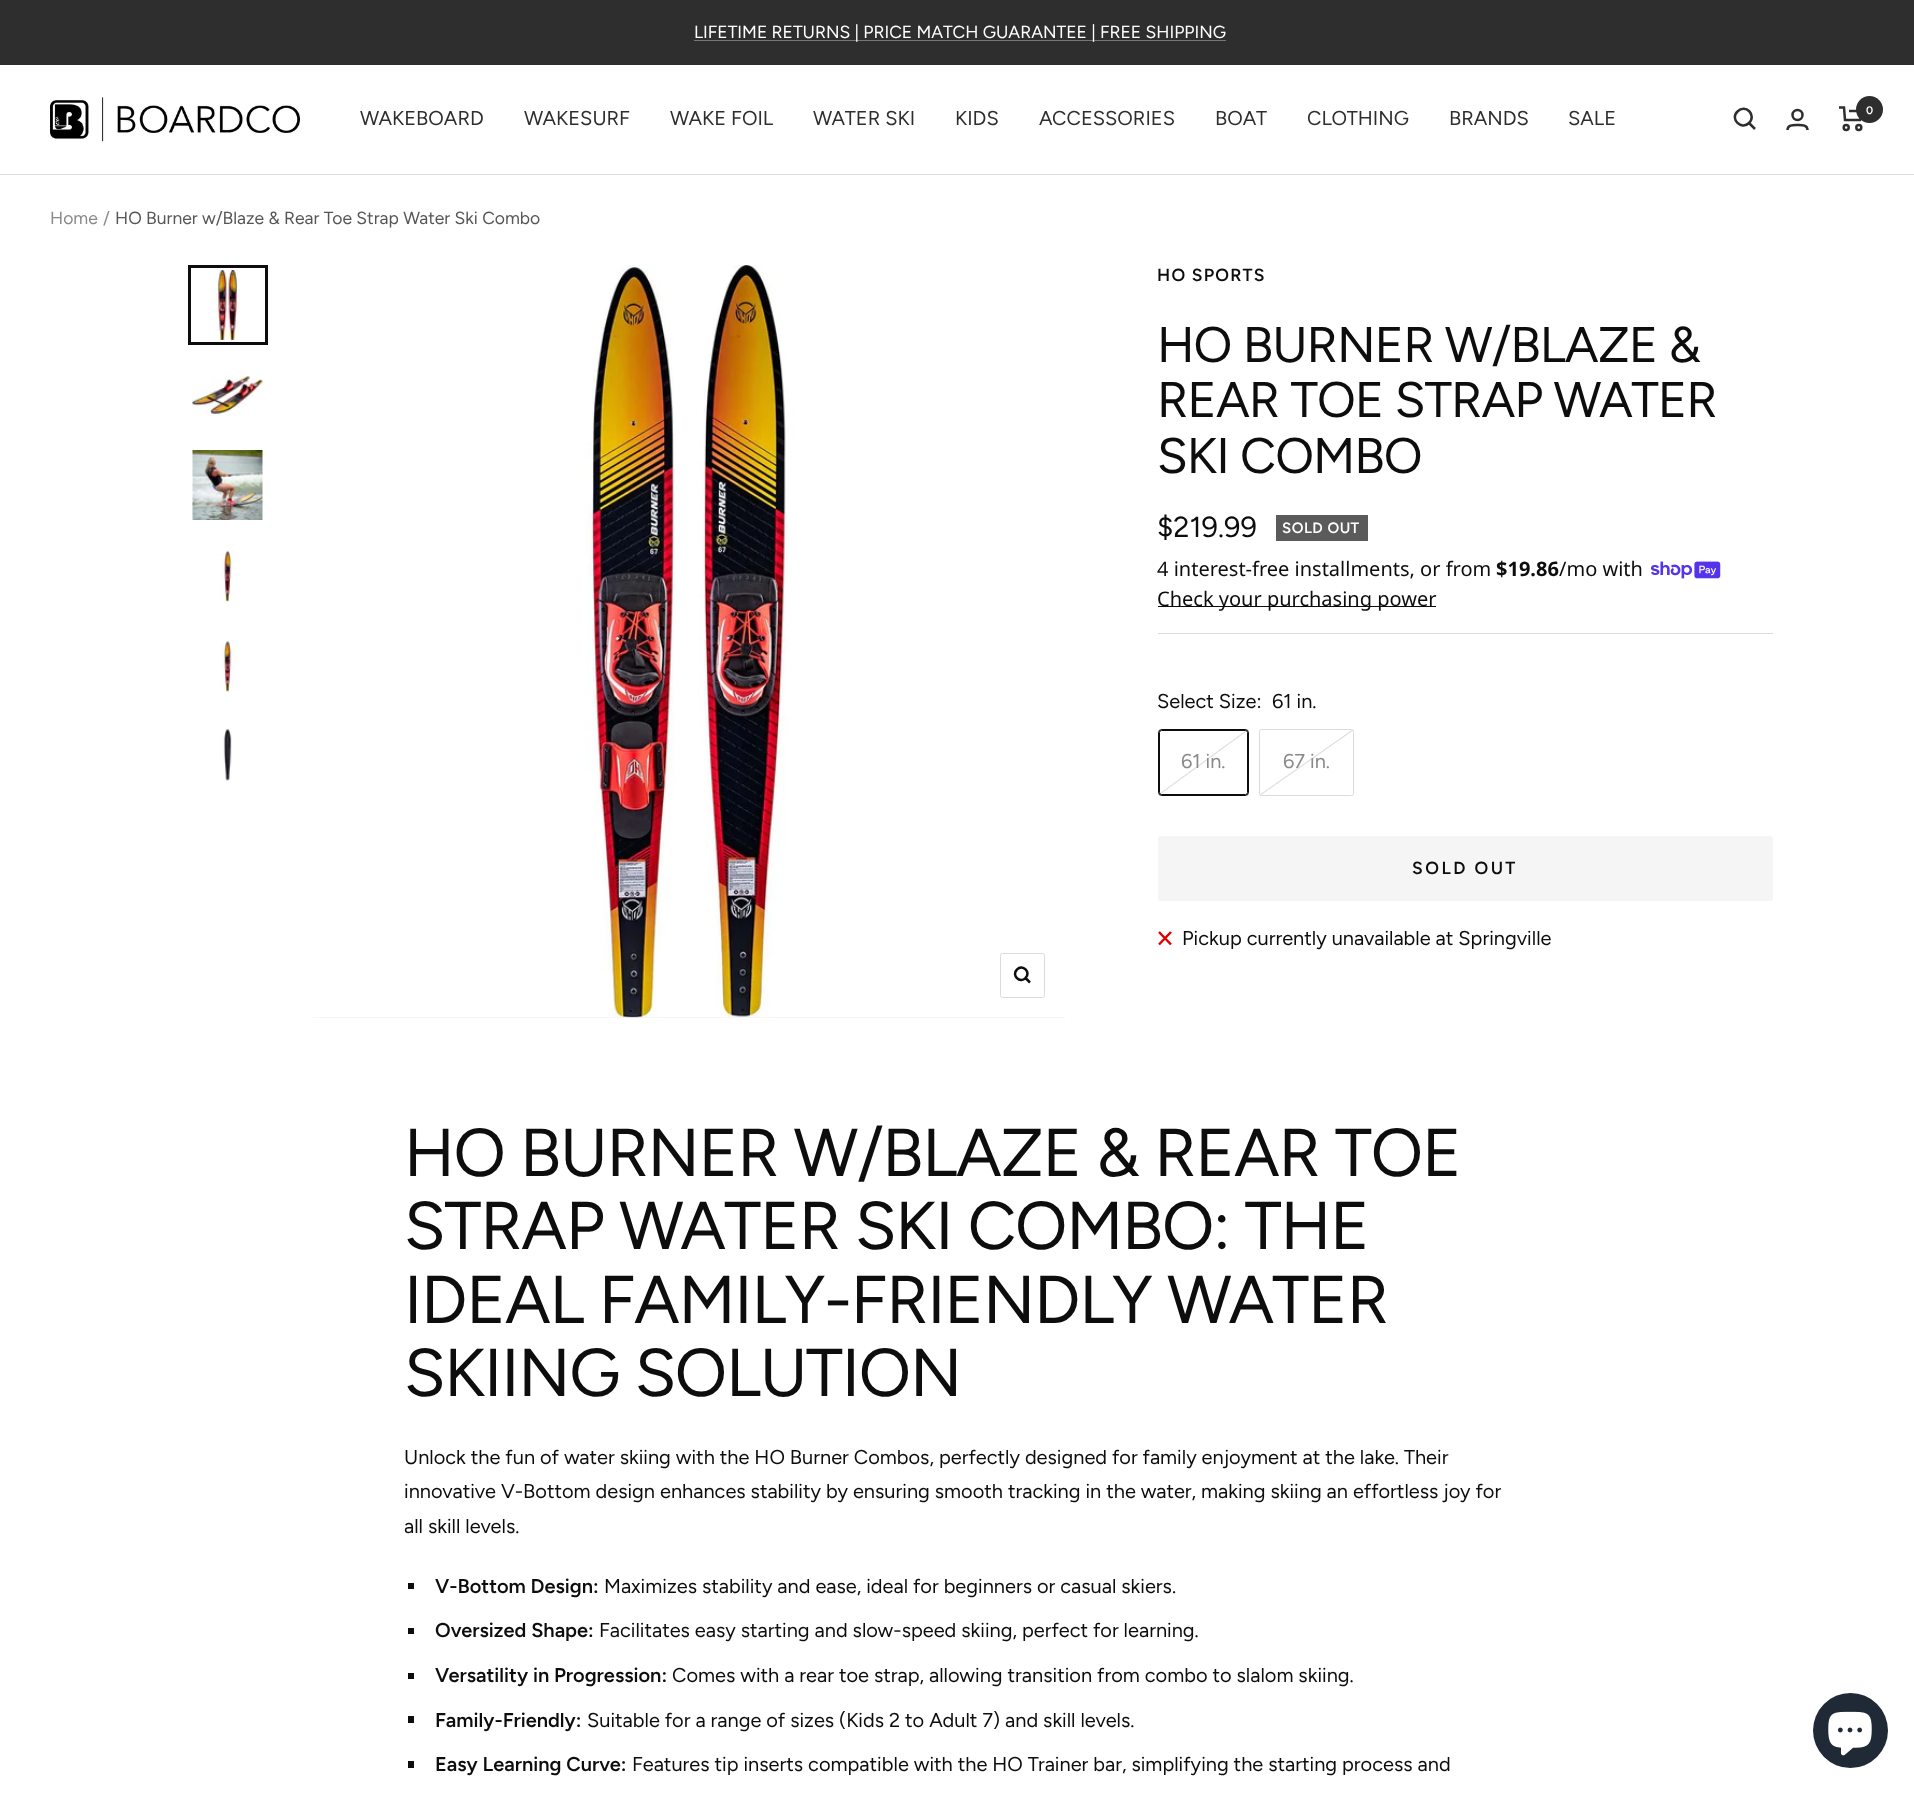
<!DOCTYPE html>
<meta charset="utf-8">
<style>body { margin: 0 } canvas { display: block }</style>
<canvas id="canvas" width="1914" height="1793"></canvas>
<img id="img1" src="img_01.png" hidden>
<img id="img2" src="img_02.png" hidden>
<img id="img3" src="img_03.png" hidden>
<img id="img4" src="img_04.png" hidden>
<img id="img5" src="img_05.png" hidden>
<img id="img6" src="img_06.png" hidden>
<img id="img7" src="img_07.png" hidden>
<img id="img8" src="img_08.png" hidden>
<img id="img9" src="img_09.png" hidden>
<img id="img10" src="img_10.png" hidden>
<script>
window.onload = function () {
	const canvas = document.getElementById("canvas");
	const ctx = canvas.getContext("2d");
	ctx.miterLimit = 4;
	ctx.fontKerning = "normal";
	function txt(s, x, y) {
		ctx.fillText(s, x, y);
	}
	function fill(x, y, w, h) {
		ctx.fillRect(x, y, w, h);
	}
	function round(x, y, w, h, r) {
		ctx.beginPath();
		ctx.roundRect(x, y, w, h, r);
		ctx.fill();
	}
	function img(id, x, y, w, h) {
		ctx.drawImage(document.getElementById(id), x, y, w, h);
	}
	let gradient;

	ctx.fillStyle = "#FFFFFF";
	fill(0, 0, 1914, 1793);
	ctx.fillStyle = "#2E2E2E";
	fill(0, 0, 1914, 65);
	ctx.fillStyle = "#777777";
	fill(694, 40, 532, 1);
	ctx.fillStyle = "#DBDBDB";
	fill(0, 174, 1914, 1);
	img("img1", 50, 97, 250, 45);
	ctx.beginPath();
	ctx.moveTo(1749, 123);
	ctx.bezierCurveTo(1757, 115, 1745.5, 103.5, 1737.5, 111.5);
	ctx.bezierCurveTo(1729.5, 119, 1741.5, 130.5, 1749, 123);
	ctx.closePath();
	ctx.moveTo(1749, 123);
	ctx.lineTo(1755, 129);
	ctx.strokeStyle = "#2E2E2E";
	ctx.lineWidth = 2.5;
	ctx.stroke();
	ctx.beginPath();
	ctx.arc(1797.5, 115, 5, 0, Math.PI * 2);
	ctx.stroke();
	ctx.beginPath();
	ctx.moveTo(1787.5, 130);
	ctx.bezierCurveTo(1787.5, 124.5, 1793.5, 125, 1797.5, 125);
	ctx.bezierCurveTo(1801.5, 125, 1807.5, 124.5, 1807.5, 130);
	ctx.stroke();
	ctx.beginPath();
	ctx.moveTo(1839, 107.5);
	ctx.lineTo(1844, 107.5);
	ctx.lineTo(1845, 120);
	ctx.lineTo(1860, 120);
	ctx.lineTo(1862.5, 111);
	ctx.lineTo(1849, 111);
	ctx.stroke();
	ctx.beginPath();
	ctx.arc(1846.2, 127.5, 2.5, 0, Math.PI * 2);
	ctx.stroke();
	ctx.beginPath();
	ctx.arc(1858.8, 127.5, 2.5, 0, Math.PI * 2);
	ctx.stroke();
	ctx.fillStyle = "#2E2E2E";
	ctx.beginPath();
	ctx.arc(1869.5, 109.5, 13.5, 0, Math.PI * 2);
	ctx.fill();
	img("img2", 214, 270, 26, 70);
	ctx.strokeStyle = "#0D0D0D";
	ctx.lineWidth = 3;
	ctx.strokeRect(189.5, 266.5, 77, 77);
	img("img3", 192, 372, 71, 44);
	img("img4", 192, 450, 71, 70);
	img("img5", 220, 550, 13, 52);
	img("img6", 220, 640, 19, 52);
	img("img7", 223, 729, 9, 52);
	ctx.fillStyle = "#F5F5F5";
	fill(313, 1017, 752, 1);
	img("img8", 313, 265, 752, 753);
	ctx.beginPath();
	ctx.roundRect(1000.5, 953.5, 44, 44, 2);
	ctx.strokeStyle = "#DBDBDB";
	ctx.lineWidth = 1;
	ctx.stroke();
	ctx.beginPath();
	ctx.moveTo(1025.5, 978);
	ctx.bezierCurveTo(1031.5, 972.5, 1022.5, 963.5, 1017, 969.5);
	ctx.bezierCurveTo(1011, 975, 1020, 984, 1025.5, 978);
	ctx.closePath();
	ctx.moveTo(1025.5, 978);
	ctx.lineTo(1030, 982.5);
	ctx.strokeStyle = "#0D0D0D";
	ctx.lineWidth = 2.5;
	ctx.stroke();
	ctx.fillStyle = "#DBDBDB";
	fill(1158, 633, 615, 1);
	ctx.fillStyle = "#5B5B5B";
	fill(1276, 515, 92, 26);
	img("img9", 1651, 561, 70, 18);
	ctx.fillStyle = "#0D0D0D";
	fill(1158, 606, 278, 1);
	gradient = ctx.createLinearGradient(1172, 720, 1234, 805);
	gradient.addColorStop(0.49, "#FFFFFF");
	gradient.addColorStop(0.5, "#DBDBDB");
	gradient.addColorStop(0.51, "#FFFFFF");
	ctx.fillStyle = gradient;
	fill(1159, 730, 89, 65);
	ctx.beginPath();
	ctx.roundRect(1158.5, 729.5, 90, 66, 2);
	ctx.strokeStyle = "#DBDBDB";
	ctx.lineWidth = 1;
	ctx.stroke();
	ctx.beginPath();
	ctx.roundRect(1158.5, 729.5, 90, 66, 3.5);
	ctx.strokeStyle = "#0D0D0D";
	ctx.stroke();
	ctx.beginPath();
	ctx.roundRect(1159.5, 730.5, 88, 64, 2);
	ctx.stroke();
	gradient = ctx.createLinearGradient(1276, 719, 1337, 806);
	gradient.addColorStop(0.49, "#FFFFFF");
	gradient.addColorStop(0.5, "#DBDBDB");
	gradient.addColorStop(0.51, "#FFFFFF");
	ctx.fillStyle = gradient;
	fill(1260, 730, 93, 65);
	ctx.beginPath();
	ctx.roundRect(1259.5, 729.5, 94, 66, 2);
	ctx.strokeStyle = "#DBDBDB";
	ctx.stroke();
	ctx.fillStyle = "#F5F5F5";
	round(1158, 836, 615, 65, 2.5);
	ctx.beginPath();
	ctx.moveTo(1159, 932);
	ctx.lineTo(1171, 944.5);
	ctx.moveTo(1159, 944.5);
	ctx.lineTo(1171, 932);
	ctx.strokeStyle = "#E00000";
	ctx.lineWidth = 2.5;
	ctx.stroke();
	ctx.fillStyle = "#0D0D0D";
	fill(408, 1583, 6, 6);
	fill(408, 1628, 6, 6);
	fill(408, 1673, 6, 6);
	fill(408, 1716, 6, 7);
	fill(408, 1761, 6, 7);
	ctx.fillStyle = "#202A36";
	ctx.beginPath();
	ctx.arc(1850.5, 1730.5, 37.5, 0, Math.PI * 2);
	ctx.fill();
	img("img10", 1828, 1711, 44, 45);
	ctx.font = "17.5px Figtree";
	ctx.fillStyle = "#FFFFFF";
	txt("LIFETIME RETURNS | PRICE MATCH GUARANTEE | FREE SHIPPING", 694, 38);
	ctx.font = "20px Figtree";
	ctx.fillStyle = "#2E2E2E";
	txt("WAKEBOARD", 360, 125);
	txt("WAKESURF", 524, 125);
	txt("WAKE FOIL", 670, 125);
	txt("WATER SKI", 813, 125);
	txt("KIDS", 955, 125);
	txt("ACCESSORIES", 1039, 125);
	txt("BOAT", 1215, 125);
	txt("CLOTHING", 1307, 125);
	txt("BRANDS", 1449, 125);
	txt("SALE", 1568, 125);
	ctx.font = "600 11px Figtree";
	ctx.fillStyle = "#FFFFFF";
	txt("0", 1866, 114);
	ctx.font = "17.5px Figtree";
	ctx.fillStyle = "#898989";
	txt("Home", 50, 224);
	txt("/", 103, 224);
	ctx.fillStyle = "#565656";
	txt("HO Burner w/Blaze & Rear Toe Strap Water Ski Combo", 115, 224);
	ctx.letterSpacing = "1.25px";
	ctx.font = "600 17.5px Figtree";
	ctx.fillStyle = "#0D0D0D";
	txt("HO SPORTS", 1157, 281);
	ctx.letterSpacing = "-1px";
	ctx.font = "50px Figtree";
	txt("HO BURNER W/BLAZE &", 1157, 362);
	txt("REAR TOE STRAP WATER", 1157, 417);
	txt("SKI COMBO", 1157, 473);
	ctx.letterSpacing = "0px";
	ctx.font = "29px Figtree";
	txt("$219.99", 1157, 537);
	ctx.letterSpacing = "0.5px";
	ctx.font = "600 15px Figtree";
	ctx.fillStyle = "#FFFFFF";
	txt("SOLD OUT", 1282, 533);
	ctx.letterSpacing = "0px";
	ctx.font = "20px Noto Sans";
	ctx.fillStyle = "#0D0D0D";
	txt("4 interest-free installments, or from", 1157, 576);
	ctx.font = "bold 20px Noto Sans";
	txt("$19.86", 1496, 576);
	ctx.font = "20px Noto Sans";
	txt("/mo with", 1559, 576);
	txt("Check your purchasing power", 1157, 606);
	ctx.font = "20px Figtree";
	txt("Select Size:", 1157, 708);
	txt("61 in.", 1272, 708);
	ctx.fillStyle = "#898989";
	txt("61 in.", 1181, 768);
	txt("67 in.", 1283, 768);
	ctx.letterSpacing = "2.5px";
	ctx.font = "600 17.5px Figtree";
	ctx.fillStyle = "#0D0D0D";
	txt("SOLD OUT", 1412, 874);
	ctx.letterSpacing = "0px";
	ctx.font = "20px Figtree";
	txt("Pickup currently unavailable at Springville", 1182, 945);
	ctx.letterSpacing = "-1.25px";
	ctx.font = "67.5px Figtree";
	txt("HO BURNER W/BLAZE & REAR TOE", 404, 1176);
	txt("STRAP WATER SKI COMBO: THE", 404, 1249);
	txt("IDEAL FAMILY-FRIENDLY WATER", 404, 1323);
	txt("SKIING SOLUTION", 404, 1396);
	ctx.letterSpacing = "0px";
	ctx.font = "20px Figtree";
	txt("Unlock the fun of water skiing with the HO Burner Combos, perfectly designed for family enjoyment at the lake. Their", 404, 1464);
	txt("innovative V-Bottom design enhances stability by ensuring smooth tracking in the water, making skiing an effortless joy for", 404, 1498);
	txt("all skill levels.", 404, 1533);
	ctx.font = "600 20px Figtree";
	txt("V-Bottom Design:", 435, 1593);
	ctx.font = "20px Figtree";
	txt("Maximizes stability and ease, ideal for beginners or casual skiers.", 604, 1593);
	ctx.font = "600 20px Figtree";
	txt("Oversized Shape:", 435, 1637);
	ctx.font = "20px Figtree";
	txt("Facilitates easy starting and slow-speed skiing, perfect for learning.", 599, 1637);
	ctx.font = "600 20px Figtree";
	txt("Versatility in Progression:", 435, 1682);
	ctx.font = "20px Figtree";
	txt("Comes with a rear toe strap, allowing transition from combo to slalom skiing.", 672, 1682);
	ctx.font = "600 20px Figtree";
	txt("Family-Friendly:", 435, 1727);
	ctx.font = "20px Figtree";
	txt("Suitable for a range of sizes (Kids 2 to Adult 7) and skill levels.", 587, 1727);
	ctx.font = "600 20px Figtree";
	txt("Easy Learning Curve:", 435, 1771);
	ctx.font = "20px Figtree";
	txt("Features tip inserts compatible with the HO Trainer bar, simplifying the starting process and", 632, 1771);
};
</script>
